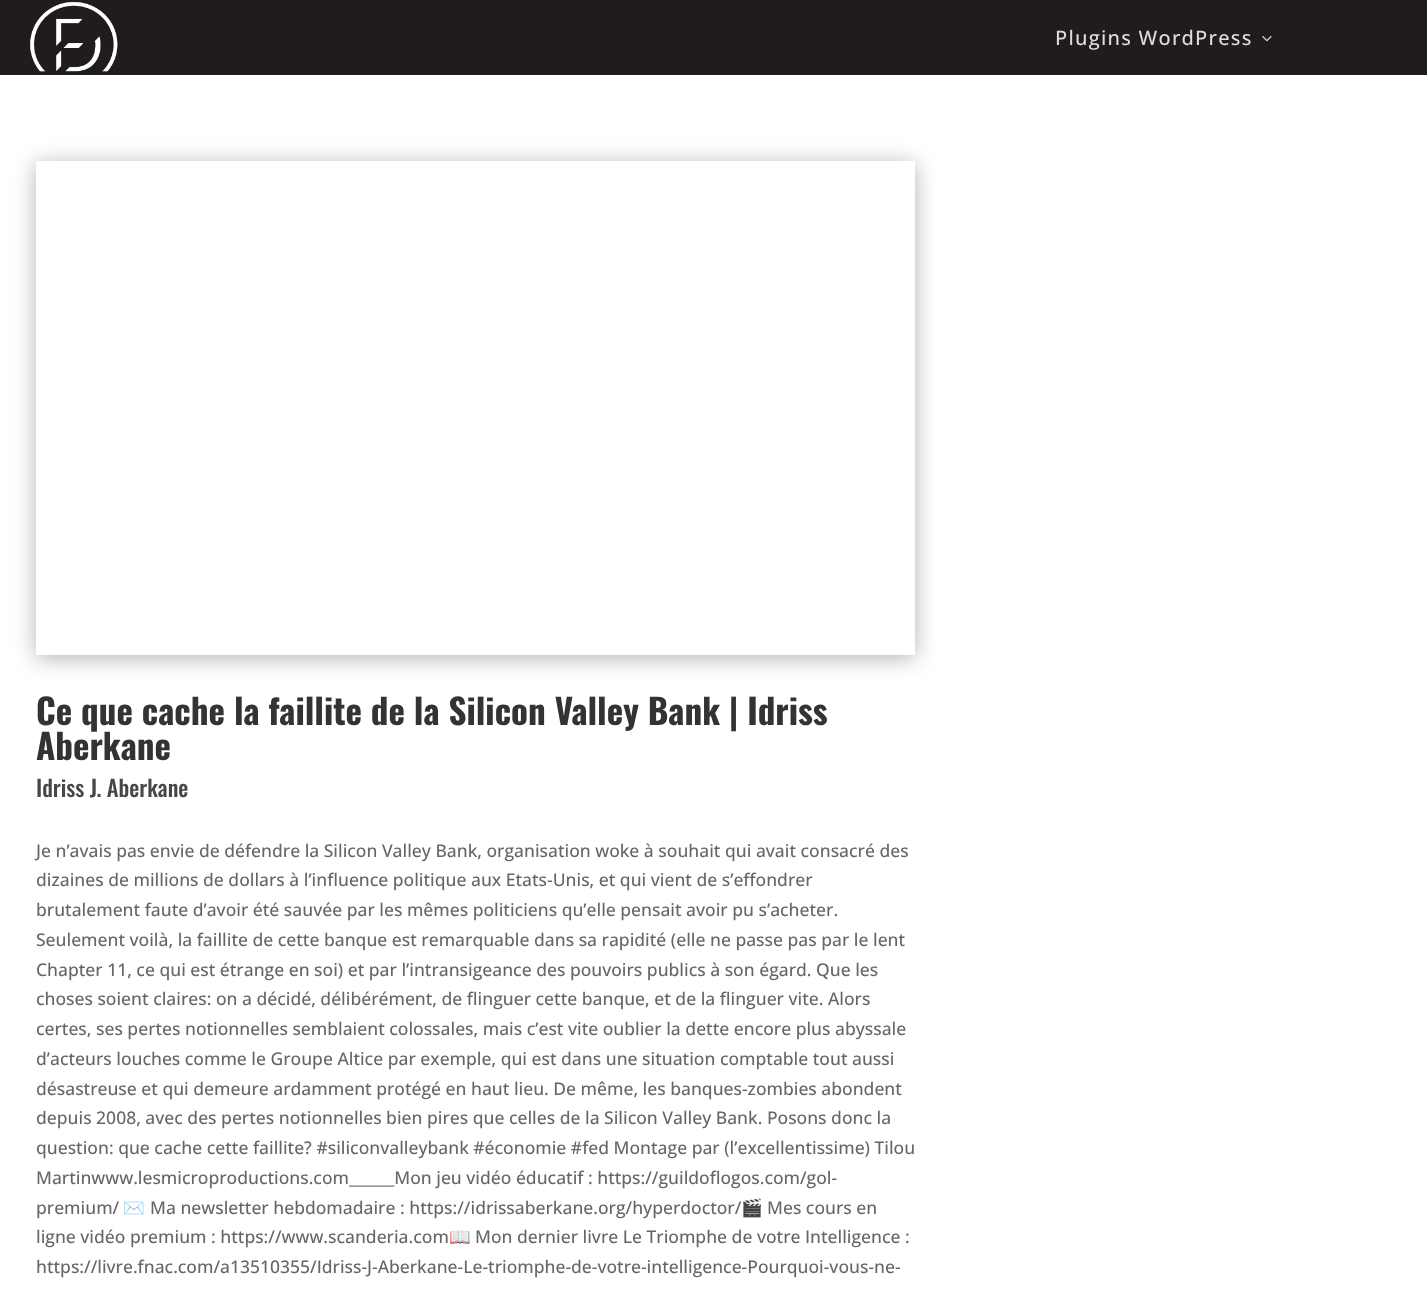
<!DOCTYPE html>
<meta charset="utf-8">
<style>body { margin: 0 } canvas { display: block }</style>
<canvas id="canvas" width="1427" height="1291"></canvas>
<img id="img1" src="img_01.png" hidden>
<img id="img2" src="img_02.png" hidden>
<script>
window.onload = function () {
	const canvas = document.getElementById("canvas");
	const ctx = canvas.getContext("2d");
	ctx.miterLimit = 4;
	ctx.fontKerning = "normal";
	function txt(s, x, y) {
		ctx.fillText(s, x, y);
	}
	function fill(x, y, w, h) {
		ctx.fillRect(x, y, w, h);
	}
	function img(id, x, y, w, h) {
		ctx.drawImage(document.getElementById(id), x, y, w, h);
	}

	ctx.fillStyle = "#FFFFFF";
	fill(0, 0, 1427, 1291);
	ctx.fillStyle = "#201B1E";
	fill(0, 0, 1427, 75);
	img("img1", 30, 2, 88, 70);
	img("img2", 1262, 36, 10, 6);
	ctx.save();
	ctx.beginPath();
	ctx.moveTo(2, 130);
	ctx.lineTo(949, 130);
	ctx.lineTo(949, 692);
	ctx.lineTo(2, 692);
	ctx.closePath();
	ctx.moveTo(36, 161);
	ctx.lineTo(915, 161);
	ctx.lineTo(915, 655);
	ctx.lineTo(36, 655);
	ctx.closePath();
	ctx.clip("evenodd");
	ctx.fillStyle = "rgba(0, 0, 0, 0.3)";
	ctx.filter = "blur(11px)";
	ctx.beginPath();
	ctx.rect(36, 164, 879, 494);
	ctx.fill();
	ctx.filter = "none";
	ctx.restore();
	ctx.letterSpacing = "1.25px";
	ctx.font = "500 20px Open Sans";
	ctx.fillStyle = "#DDDDDD";
	txt("Plugins WordPress", 1055, 45);
	ctx.letterSpacing = "0px";
	ctx.font = "bold 35px Oswald";
	ctx.fillStyle = "#333333";
	txt("Ce que cache la faillite de la Silicon Valley Bank | Idriss", 36, 725);
	txt("Aberkane", 36, 760);
	ctx.font = "500 22.5px Oswald";
	ctx.fillStyle = "#474747";
	txt("Idriss J. Aberkane", 36, 797);
	ctx.font = "500 17.5px Open Sans";
	ctx.fillStyle = "#666666";
	txt("Je n’avais pas envie de défendre la Silicon Valley Bank, organisation woke à souhait qui avait consacré des", 36, 857);
	txt("dizaines de millions de dollars à l’influence politique aux Etats-Unis, et qui vient de s’effondrer", 36, 886);
	txt("brutalement faute d’avoir été sauvée par les mêmes politiciens qu’elle pensait avoir pu s’acheter.", 36, 916);
	txt("Seulement voilà, la faillite de cette banque est remarquable dans sa rapidité (elle ne passe pas par le lent", 36, 946);
	txt("Chapter 11, ce qui est étrange en soi) et par l’intransigeance des pouvoirs publics à son égard. Que les", 36, 976);
	txt("choses soient claires: on a décidé, délibérément, de flinguer cette banque, et de la flinguer vite. Alors", 36, 1005);
	txt("certes, ses pertes notionnelles semblaient colossales, mais c’est vite oublier la dette encore plus abyssale", 36, 1035);
	txt("d’acteurs louches comme le Groupe Altice par exemple, qui est dans une situation comptable tout aussi", 36, 1065);
	txt("désastreuse et qui demeure ardamment protégé en haut lieu. De même, les banques-zombies abondent", 36, 1095);
	txt("depuis 2008, avec des pertes notionnelles bien pires que celles de la Silicon Valley Bank. Posons donc la", 36, 1124);
	txt("question: que cache cette faillite? #siliconvalleybank #économie #fed Montage par (l’excellentissime) Tilou", 36, 1154);
	txt("Martinwww.lesmicroproductions.com______Mon jeu vidéo éducatif : https://guildoflogos.com/gol-", 36, 1184);
	txt("premium/", 36, 1214);
	ctx.font = "17.5px Noto Color Emoji";
	txt("✉️", 123, 1214);
	ctx.font = "500 17.5px Open Sans";
	txt("Ma newsletter hebdomadaire : https://idrissaberkane.org/hyperdoctor/", 150, 1214);
	ctx.font = "17.5px Noto Color Emoji";
	txt("🎬", 741, 1214);
	ctx.font = "500 17.5px Open Sans";
	txt("Mes cours en", 767, 1214);
	txt("ligne vidéo premium : https://www.scanderia.com", 36, 1243);
	ctx.font = "17.5px Noto Color Emoji";
	txt("📖", 449, 1243);
	ctx.font = "500 17.5px Open Sans";
	txt("Mon dernier livre Le Triomphe de votre Intelligence :", 475, 1243);
	txt("https://livre.fnac.com/a13510355/Idriss-J-Aberkane-Le-triomphe-de-votre-intelligence-Pourquoi-vous-ne-", 36, 1273);
};
</script>
